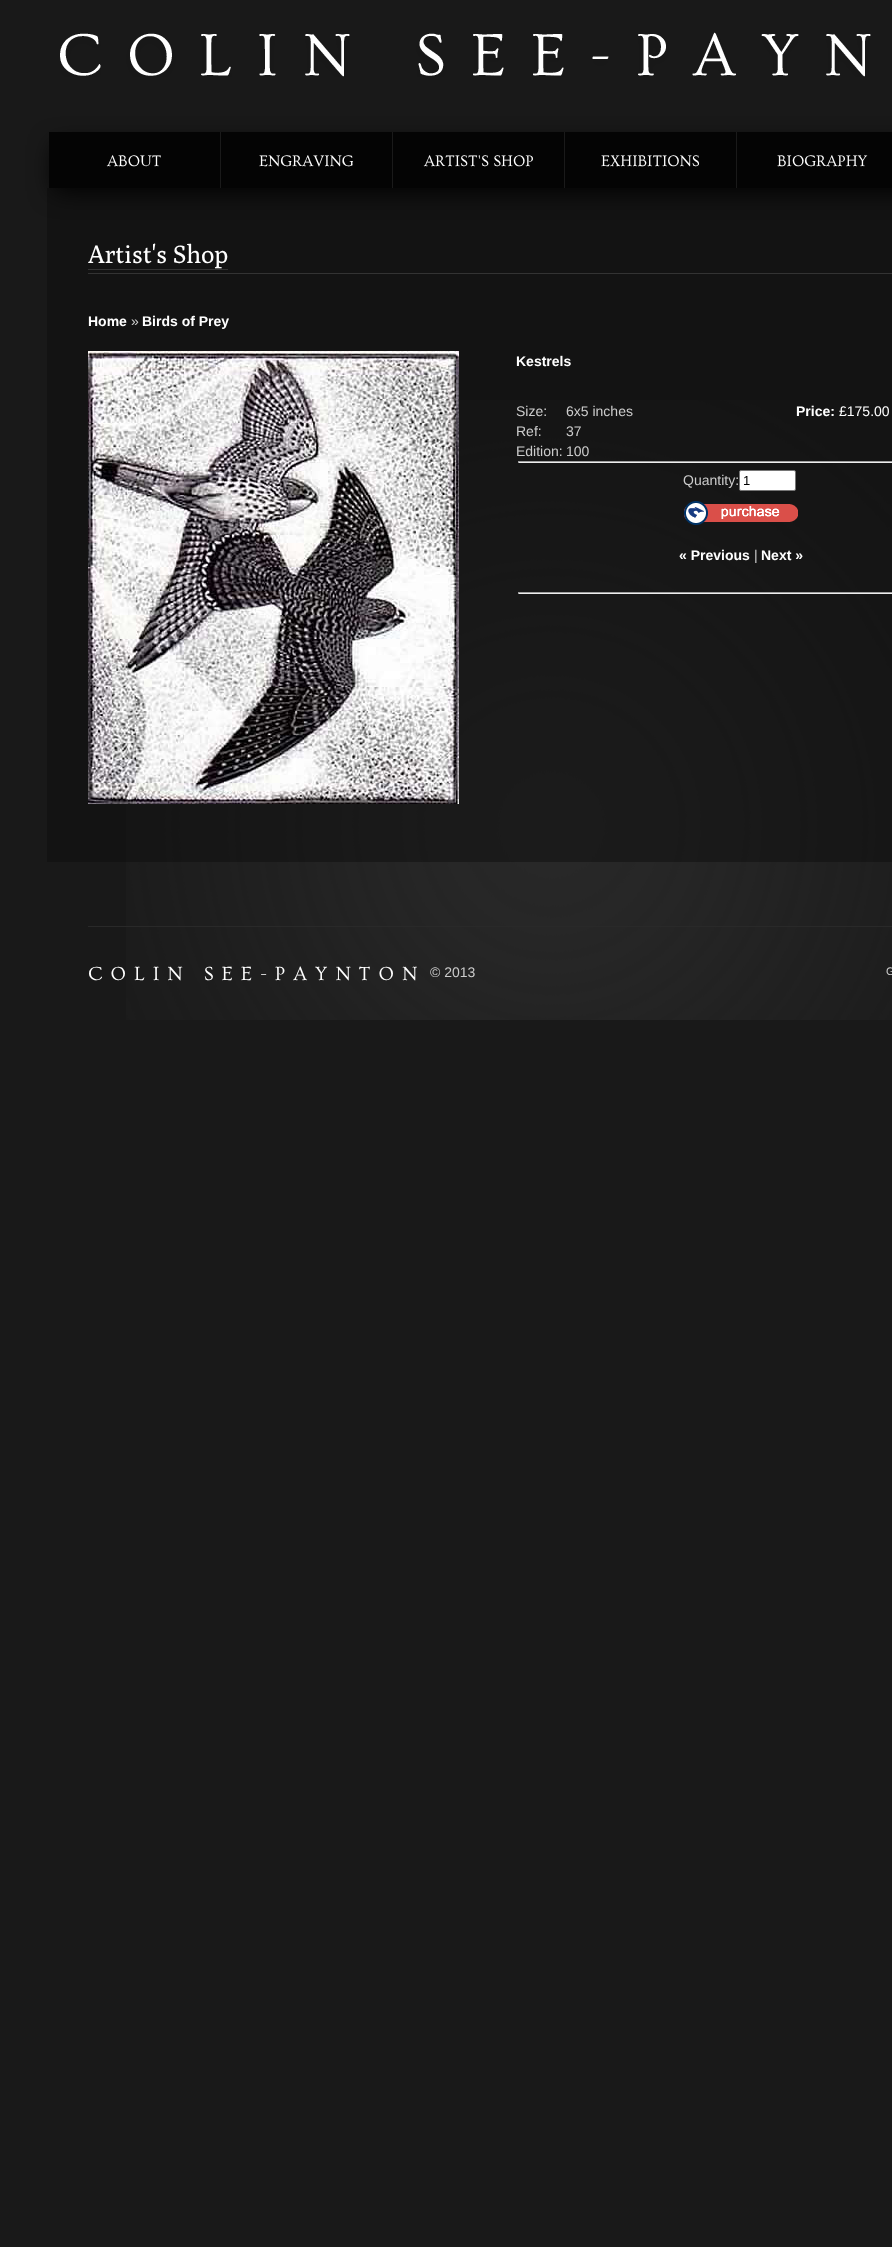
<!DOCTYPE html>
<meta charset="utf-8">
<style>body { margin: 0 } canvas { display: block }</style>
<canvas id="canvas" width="892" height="2247"></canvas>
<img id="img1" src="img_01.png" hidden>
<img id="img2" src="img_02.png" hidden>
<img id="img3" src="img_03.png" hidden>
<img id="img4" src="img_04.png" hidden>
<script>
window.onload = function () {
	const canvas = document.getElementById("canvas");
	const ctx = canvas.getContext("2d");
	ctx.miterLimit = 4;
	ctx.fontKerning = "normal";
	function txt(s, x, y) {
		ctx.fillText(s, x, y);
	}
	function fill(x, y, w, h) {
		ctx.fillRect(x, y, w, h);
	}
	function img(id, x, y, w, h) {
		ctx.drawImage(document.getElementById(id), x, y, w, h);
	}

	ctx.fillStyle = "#191919";
	fill(0, 0, 892, 2247);
	img("img1", 126, 400, 766, 620);
	img("img2", 60, 32, 811, 45);
	ctx.fillStyle = "rgba(14, 14, 14, 0.5)";
	fill(47, 188, 845, 674);
	ctx.fillStyle = "#000000";
	ctx.filter = "blur(12.5px)";
	ctx.beginPath();
	ctx.rect(54, 145, 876, 46);
	ctx.fill();
	ctx.filter = "none";
	ctx.fillStyle = "#040404";
	fill(49, 132, 843, 56);
	ctx.fillStyle = "#1A1A1A";
	fill(220, 132, 1, 56);
	fill(392, 132, 1, 56);
	fill(564, 132, 1, 56);
	fill(736, 132, 1, 56);
	ctx.fillStyle = "#333333";
	fill(88, 273, 804, 1);
	fill(88, 269, 140, 1);
	img("img3", 88, 351, 371, 453);
	ctx.fillStyle = "#9F9F9F";
	fill(518, 461, 374, 1);
	ctx.fillStyle = "#EEEEEE";
	fill(518, 462, 374, 1);
	ctx.fillStyle = "#9F9F9F";
	fill(518, 461, 1, 2);
	ctx.fillStyle = "#FFFFFF";
	ctx.beginPath();
	ctx.roundRect(739.5, 470.5, 56, 20, 1.5);
	ctx.fill();
	ctx.strokeStyle = "#767676";
	ctx.stroke();
	img("img4", 684, 501, 114, 24);
	ctx.fillStyle = "#9F9F9F";
	fill(518, 592, 374, 1);
	ctx.fillStyle = "#EEEEEE";
	fill(518, 593, 374, 1);
	ctx.fillStyle = "#9F9F9F";
	fill(518, 592, 1, 2);
	ctx.fillStyle = "#292929";
	fill(88, 926, 804, 1);
	ctx.font = "16px Ovo";
	ctx.fillStyle = "#FFFFFF";
	txt("ABOUT", 107, 166);
	txt("ENGRAVING", 259, 166);
	txt("ARTIST'S SHOP", 424, 166);
	txt("EXHIBITIONS", 601, 166);
	txt("BIOGRAPHY", 777, 166);
	ctx.font = "25px Poly";
	txt("Artist's Shop", 88, 263);
	ctx.font = "bold 14px Liberation Sans";
	txt("Home", 88, 326);
	ctx.font = "14px Liberation Sans";
	ctx.fillStyle = "#CCCCCC";
	txt("»", 131, 326);
	ctx.font = "bold 14px Liberation Sans";
	ctx.fillStyle = "#FFFFFF";
	txt("Birds of Prey", 142, 326);
	txt("Kestrels", 516, 366);
	ctx.font = "14px Liberation Sans";
	ctx.fillStyle = "#CCCCCC";
	txt("Size:", 516, 416);
	txt("6x5 inches", 566, 416);
	txt("Ref:", 516, 436);
	txt("37", 566, 436);
	txt("Edition:", 516, 456);
	txt("100", 566, 456);
	ctx.font = "bold 14px Liberation Sans";
	ctx.fillStyle = "#FFFFFF";
	txt("Price:", 796, 416);
	ctx.font = "14px Liberation Sans";
	txt("£175.00", 839, 416);
	ctx.fillStyle = "#CCCCCC";
	txt("Quantity:", 683, 485);
	ctx.font = "13px Liberation Sans";
	ctx.fillStyle = "#000000";
	txt("1", 743, 485);
	ctx.font = "bold 14px Liberation Sans";
	ctx.fillStyle = "#FFFFFF";
	txt("« Previous", 679, 560);
	ctx.font = "14px Liberation Sans";
	ctx.fillStyle = "#CCCCCC";
	txt("|", 754, 560);
	ctx.font = "bold 14px Liberation Sans";
	ctx.fillStyle = "#FFFFFF";
	txt("Next »", 761, 560);
	ctx.letterSpacing = "8px";
	ctx.font = "20px Ovo";
	txt("COLIN SEE-PAYNTON", 88, 980);
	ctx.letterSpacing = "0px";
	ctx.font = "14px Liberation Sans";
	ctx.fillStyle = "#CCCCCC";
	txt("© 2013", 430, 977);
	ctx.font = "11px Liberation Sans";
	txt("G", 886, 975);
};
</script>
